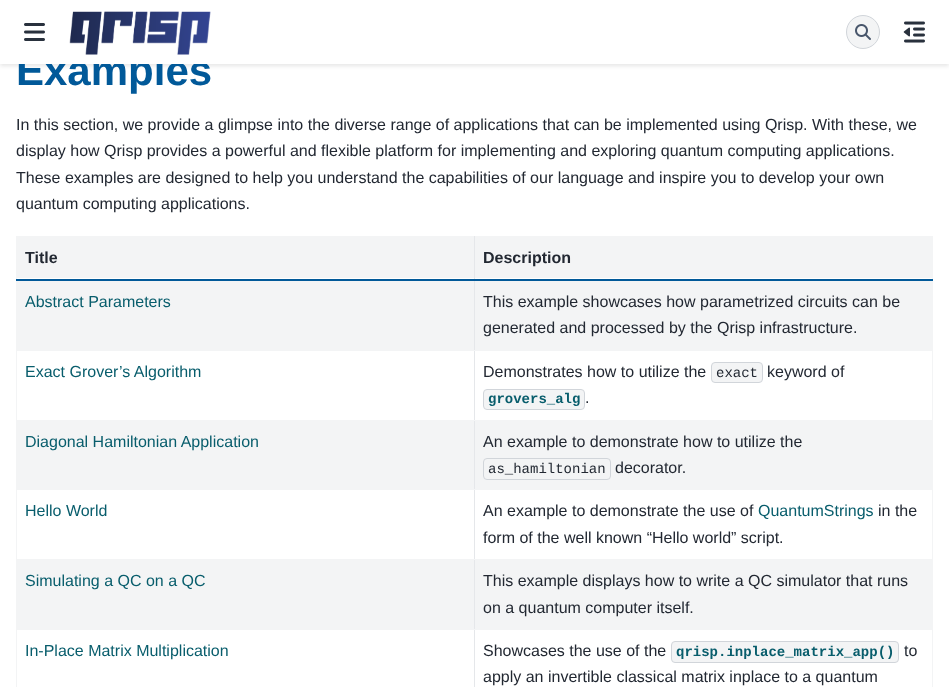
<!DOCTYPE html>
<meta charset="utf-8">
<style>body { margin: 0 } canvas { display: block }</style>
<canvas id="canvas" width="949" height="687"></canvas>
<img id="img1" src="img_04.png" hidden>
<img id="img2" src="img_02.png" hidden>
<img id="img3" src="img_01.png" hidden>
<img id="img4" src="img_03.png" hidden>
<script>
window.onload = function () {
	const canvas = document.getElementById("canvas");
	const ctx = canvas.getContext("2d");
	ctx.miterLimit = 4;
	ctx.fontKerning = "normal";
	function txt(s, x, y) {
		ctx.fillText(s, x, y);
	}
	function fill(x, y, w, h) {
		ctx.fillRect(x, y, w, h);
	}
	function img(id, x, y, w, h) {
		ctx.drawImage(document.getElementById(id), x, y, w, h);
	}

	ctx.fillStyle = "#FFFFFF";
	fill(0, 0, 949, 687);
	ctx.fillStyle = "rgba(0, 0, 0, 0.1)";
	ctx.filter = "blur(2px)";
	ctx.beginPath();
	ctx.rect(0, 2, 949, 64);
	ctx.fill();
	ctx.filter = "none";
	ctx.fillStyle = "#F3F4F5";
	fill(16, 236, 917, 1);
	fill(932, 236, 1, 451);
	fill(16, 236, 1, 451);
	fill(17, 237, 915, 41);
	fill(17, 281, 915, 69);
	fill(17, 421, 915, 68);
	fill(17, 560, 915, 69);
	ctx.fillStyle = "#E5E7EA";
	fill(474, 629, 1, 58);
	ctx.fillStyle = "#F3F4F5";
	fill(474, 629, 459, 1);
	ctx.fillStyle = "#E5E7EA";
	fill(474, 559, 1, 71);
	ctx.fillStyle = "#F3F4F5";
	fill(474, 559, 459, 1);
	ctx.fillStyle = "#E5E7EA";
	fill(474, 489, 1, 71);
	ctx.fillStyle = "#F3F4F5";
	fill(474, 489, 459, 1);
	ctx.fillStyle = "#E5E7EA";
	fill(474, 420, 1, 70);
	ctx.fillStyle = "#F3F4F5";
	fill(474, 420, 459, 1);
	ctx.fillStyle = "#E5E7EA";
	fill(474, 350, 1, 71);
	ctx.fillStyle = "#F3F4F5";
	fill(474, 350, 459, 1);
	ctx.fillStyle = "#E5E7EA";
	fill(474, 236, 1, 115);
	ctx.fillStyle = "#015999";
	fill(16, 279, 917, 2);
	ctx.fillStyle = "#F3F4F5";
	fill(16, 350, 459, 1);
	fill(16, 420, 459, 1);
	ctx.beginPath();
	ctx.roundRect(711.5, 362.5, 51, 20, 3.5);
	ctx.fill();
	ctx.strokeStyle = "#D1D5DA";
	ctx.stroke();
	ctx.beginPath();
	ctx.roundRect(483.5, 389.5, 101, 20, 3.5);
	ctx.fill();
	ctx.stroke();
	fill(16, 489, 459, 1);
	ctx.beginPath();
	ctx.roundRect(483.5, 458.5, 127, 21, 3.5);
	ctx.stroke();
	fill(16, 559, 459, 1);
	fill(16, 629, 459, 1);
	ctx.beginPath();
	ctx.roundRect(671.5, 641.5, 227, 21, 3.5);
	ctx.fill();
	ctx.stroke();
	ctx.font = "bold 42px Liberation Sans";
	ctx.fillStyle = "#015999";
	txt("Examples", 16, 85);
	ctx.fillStyle = "#FFFFFF";
	fill(0, 0, 949, 64);
	img("img1", 903, 21, 22, 22);
	img("img2", 69, 11, 142, 44);
	img("img3", 24, 23, 21, 18);
	ctx.fillStyle = "#F3F4F5";
	ctx.beginPath();
	ctx.arc(863, 32, 16.5, 0, Math.PI * 2);
	ctx.fill();
	ctx.stroke();
	img("img4", 855, 24, 16, 16);
	ctx.font = "16px Liberation Sans";
	ctx.fillStyle = "#222832";
	txt("In this section, we provide a glimpse into the diverse range of applications that can be implemented using Qrisp. With these, we", 16, 130);
	txt("display how Qrisp provides a powerful and flexible platform for implementing and exploring quantum computing applications.", 16, 156);
	txt("These examples are designed to help you understand the capabilities of our language and inspire you to develop your own", 16, 183);
	txt("quantum computing applications.", 16, 209);
	ctx.font = "bold 16px Liberation Sans";
	txt("Title", 25, 263);
	txt("Description", 483, 263);
	ctx.font = "16px Liberation Sans";
	ctx.fillStyle = "#085D6C";
	txt("Abstract Parameters", 25, 307);
	ctx.fillStyle = "#222832";
	txt("This example showcases how parametrized circuits can be", 483, 307);
	txt("generated and processed by the Qrisp infrastructure.", 483, 333);
	ctx.fillStyle = "#085D6C";
	txt("Exact Grover’s Algorithm", 25, 377);
	ctx.fillStyle = "#222832";
	txt("Demonstrates how to utilize the", 483, 377);
	ctx.font = "14px Liberation Mono";
	txt("exact", 716, 377);
	ctx.font = "16px Liberation Sans";
	txt("keyword of", 767, 377);
	ctx.font = "bold 14px Liberation Mono";
	ctx.fillStyle = "#085D6C";
	txt("grovers_alg", 488, 403);
	ctx.font = "16px Liberation Sans";
	ctx.fillStyle = "#222832";
	txt(".", 585, 403);
	ctx.fillStyle = "#085D6C";
	txt("Diagonal Hamiltonian Application", 25, 447);
	ctx.fillStyle = "#222832";
	txt("An example to demonstrate how to utilize the", 483, 447);
	ctx.font = "14px Liberation Mono";
	txt("as_hamiltonian", 488, 473);
	ctx.font = "16px Liberation Sans";
	txt("decorator.", 615, 473);
	ctx.fillStyle = "#085D6C";
	txt("Hello World", 25, 516);
	ctx.fillStyle = "#222832";
	txt("An example to demonstrate the use of", 483, 516);
	ctx.fillStyle = "#085D6C";
	txt("QuantumStrings", 758, 516);
	ctx.fillStyle = "#222832";
	txt("in the", 878, 516);
	txt("form of the well known “Hello world” script.", 483, 543);
	ctx.fillStyle = "#085D6C";
	txt("Simulating a QC on a QC", 25, 586);
	ctx.fillStyle = "#222832";
	txt("This example displays how to write a QC simulator that runs", 483, 586);
	txt("on a quantum computer itself.", 483, 613);
	ctx.fillStyle = "#085D6C";
	txt("In-Place Matrix Multiplication", 25, 656);
	ctx.fillStyle = "#222832";
	txt("Showcases the use of the", 483, 656);
	ctx.font = "bold 14px Liberation Mono";
	ctx.fillStyle = "#085D6C";
	txt("qrisp.inplace_matrix_app()", 676, 656);
	ctx.font = "16px Liberation Sans";
	ctx.fillStyle = "#222832";
	txt("to", 904, 656);
	txt("apply an invertible classical matrix inplace to a quantum", 483, 682);
};
</script>
